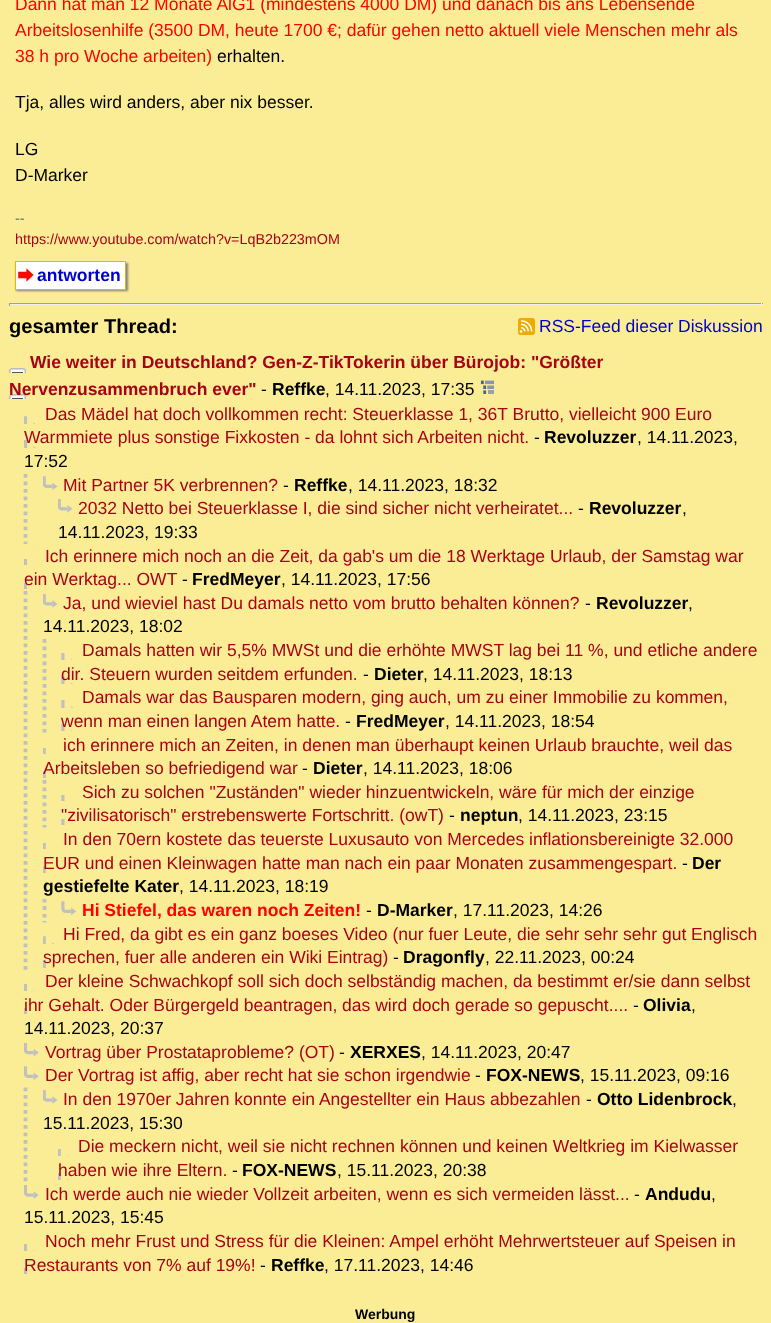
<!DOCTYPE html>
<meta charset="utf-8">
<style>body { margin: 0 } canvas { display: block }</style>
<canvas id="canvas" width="771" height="1323"></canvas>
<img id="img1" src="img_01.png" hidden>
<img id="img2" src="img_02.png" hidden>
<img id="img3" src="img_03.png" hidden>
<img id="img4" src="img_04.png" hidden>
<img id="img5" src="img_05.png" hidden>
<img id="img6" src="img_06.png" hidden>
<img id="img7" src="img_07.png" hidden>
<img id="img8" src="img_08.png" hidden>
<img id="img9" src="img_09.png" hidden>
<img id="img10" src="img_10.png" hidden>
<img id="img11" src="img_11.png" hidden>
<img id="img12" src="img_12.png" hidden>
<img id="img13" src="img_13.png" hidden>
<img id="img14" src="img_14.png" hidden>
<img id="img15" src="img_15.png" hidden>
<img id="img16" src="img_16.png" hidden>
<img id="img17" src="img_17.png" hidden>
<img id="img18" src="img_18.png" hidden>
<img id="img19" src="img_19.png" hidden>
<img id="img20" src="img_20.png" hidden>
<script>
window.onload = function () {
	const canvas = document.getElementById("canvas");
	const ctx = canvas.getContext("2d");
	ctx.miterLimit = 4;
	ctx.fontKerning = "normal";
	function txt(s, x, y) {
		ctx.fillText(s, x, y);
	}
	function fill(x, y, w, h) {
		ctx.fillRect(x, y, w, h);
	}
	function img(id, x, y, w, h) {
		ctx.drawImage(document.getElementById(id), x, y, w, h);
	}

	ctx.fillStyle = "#FAED96";
	fill(0, 0, 771, 1323);
	ctx.fillStyle = "#808080";
	ctx.filter = "blur(1px)";
	ctx.beginPath();
	ctx.rect(16, 263, 112, 28);
	ctx.fill();
	ctx.filter = "none";
	ctx.fillStyle = "#FFFFFF";
	fill(16, 262, 109, 27);
	img("img1", 18, 268, 16, 14);
	ctx.strokeStyle = "#D8BC0A";
	ctx.strokeRect(15.5, 261.5, 110, 28);
	ctx.fillStyle = "#9F9F9F";
	fill(9, 303, 754, 1);
	ctx.fillStyle = "#EEEEEE";
	fill(761, 303, 1, 3);
	fill(9, 304, 754, 1);
	ctx.fillStyle = "#9F9F9F";
	fill(9, 303, 1, 3);
	img("img2", 518, 318, 17, 17);
	img("img3", 9, 368, 17, 31);
	img("img4", 480, 380, 15, 14);
	img("img5", 24, 416, 12, 32);
	ctx.beginPath();
	ctx.moveTo(25.5, 474);
	ctx.lineTo(25.5, 544);
	ctx.strokeStyle = "#BFC1BE";
	ctx.lineWidth = 3.8;
	ctx.setLineDash([3.75, 3.75]);
	ctx.stroke();
	img("img6", 43, 476, 15, 14);
	img("img7", 58, 499, 15, 14);
	img("img8", 24, 559, 3, 30);
	ctx.beginPath();
	ctx.moveTo(25.5, 591);
	ctx.lineTo(25.5, 970);
	ctx.stroke();
	img("img7", 43, 594, 15, 14);
	ctx.beginPath();
	ctx.moveTo(44.5, 639);
	ctx.lineTo(44.5, 732.5);
	ctx.stroke();
	img("img9", 61, 653, 12, 31);
	img("img10", 61, 700, 13, 31);
	img("img11", 43, 748, 10, 30);
	ctx.beginPath();
	ctx.moveTo(44.5, 780);
	ctx.lineTo(44.5, 827.5);
	ctx.stroke();
	img("img12", 61, 795, 4, 30);
	img("img11", 43, 843, 10, 30);
	ctx.beginPath();
	ctx.moveTo(44.5, 899);
	ctx.lineTo(44.5, 902.5);
	ctx.moveTo(44.5, 906);
	ctx.lineTo(44.5, 910);
	ctx.moveTo(44.5, 914);
	ctx.lineTo(44.5, 917.5);
	ctx.moveTo(44.5, 921);
	ctx.lineTo(44.5, 922.5);
	ctx.setLineDash([]);
	ctx.stroke();
	img("img13", 61, 901, 15, 14);
	img("img14", 43, 936, 12, 32);
	img("img15", 24, 984, 11, 30);
	img("img16", 24, 1043, 15, 14);
	img("img17", 24, 1066, 15, 14);
	ctx.beginPath();
	ctx.moveTo(25.5, 1087.5);
	ctx.lineTo(25.5, 1182.5);
	ctx.setLineDash([3.75, 3.75]);
	ctx.stroke();
	img("img18", 43, 1090, 15, 14);
	img("img19", 58, 1149, 11, 31);
	img("img20", 24, 1185, 15, 14);
	img("img15", 24, 1244, 11, 30);
	ctx.font = "17.5px Liberation Sans";
	ctx.fillStyle = "#FF0000";
	txt("Dann hat man 12 Monate AlG1 (mindestens 4000 DM) und danach bis ans Lebensende", 15, 10);
	txt("Arbeitslosenhilfe (3500 DM, heute 1700 €; dafür gehen netto aktuell viele Menschen mehr als", 15, 36);
	txt("38 h pro Woche arbeiten)", 15, 62);
	ctx.fillStyle = "#000000";
	txt("erhalten.", 217, 62);
	txt("Tja, alles wird anders, aber nix besser.", 15, 108);
	txt("LG", 15, 155);
	txt("D-Marker", 15, 181);
	ctx.font = "14.35px Liberation Sans";
	ctx.fillStyle = "#5A6774";
	txt("--", 15, 223);
	ctx.fillStyle = "#A80218";
	txt("https://www.youtube.com/watch?v=LqB2b223mOM", 15, 244);
	ctx.font = "bold 17.5px Liberation Sans";
	ctx.fillStyle = "#0000CC";
	txt("antworten", 37, 281);
	ctx.font = "bold 20.1px Liberation Sans";
	ctx.fillStyle = "#000000";
	txt("gesamter Thread:", 9, 333);
	ctx.font = "17.5px Liberation Sans";
	ctx.fillStyle = "#0000CC";
	txt("RSS-Feed dieser Diskussion", 539, 332);
	ctx.font = "bold 17.5px Liberation Sans";
	ctx.fillStyle = "#A80218";
	txt("Wie weiter in Deutschland? Gen-Z-TikTokerin über Bürojob: \"Größter", 30, 368);
	txt("Nervenzusammenbruch ever\"", 9, 395);
	ctx.font = "17.5px Liberation Sans";
	ctx.fillStyle = "#000000";
	txt("-", 261, 395);
	ctx.font = "bold 17.5px Liberation Sans";
	txt("Reffke", 272, 395);
	ctx.font = "17.5px Liberation Sans";
	txt(", 14.11.2023, 17:35", 325, 395);
	ctx.fillStyle = "#A80218";
	txt("Das Mädel hat doch vollkommen recht: Steuerklasse 1, 36T Brutto, vielleicht 900 Euro", 45, 420);
	txt("Warmmiete plus sonstige Fixkosten - da lohnt sich Arbeiten nicht.", 24, 443);
	ctx.fillStyle = "#000000";
	txt("-", 534, 443);
	ctx.font = "bold 17.5px Liberation Sans";
	txt("Revoluzzer", 544, 443);
	ctx.font = "17.5px Liberation Sans";
	txt(", 14.11.2023,", 637, 443);
	txt("17:52", 24, 467);
	ctx.fillStyle = "#A80218";
	txt("Mit Partner 5K verbrennen?", 63, 491);
	ctx.fillStyle = "#000000";
	txt("-", 283, 491);
	ctx.font = "bold 17.5px Liberation Sans";
	txt("Reffke", 294, 491);
	ctx.font = "17.5px Liberation Sans";
	txt(", 14.11.2023, 18:32", 348, 491);
	ctx.fillStyle = "#A80218";
	txt("2032 Netto bei Steuerklasse I, die sind sicher nicht verheiratet...", 78, 514);
	ctx.fillStyle = "#000000";
	txt("-", 578, 514);
	ctx.font = "bold 17.5px Liberation Sans";
	txt("Revoluzzer", 589, 514);
	ctx.font = "17.5px Liberation Sans";
	txt(",", 682, 514);
	txt("14.11.2023, 19:33", 58, 538);
	ctx.fillStyle = "#A80218";
	txt("Ich erinnere mich noch an die Zeit, da gab's um die 18 Werktage Urlaub, der Samstag war", 45, 562);
	txt("ein Werktag... OWT", 24, 585);
	ctx.fillStyle = "#000000";
	txt("-", 182, 585);
	ctx.font = "bold 17.5px Liberation Sans";
	txt("FredMeyer", 192, 585);
	ctx.font = "17.5px Liberation Sans";
	txt(", 14.11.2023, 17:56", 281, 585);
	ctx.fillStyle = "#A80218";
	txt("Ja, und wieviel hast Du damals netto vom brutto behalten können?", 63, 609);
	ctx.fillStyle = "#000000";
	txt("-", 585, 609);
	ctx.font = "bold 17.5px Liberation Sans";
	txt("Revoluzzer", 596, 609);
	ctx.font = "17.5px Liberation Sans";
	txt(",", 688, 609);
	txt("14.11.2023, 18:02", 43, 632);
	ctx.fillStyle = "#A80218";
	txt("Damals hatten wir 5,5% MWSt und die erhöhte MWST lag bei 11 %, und etliche andere", 82, 656);
	txt("dir. Steuern wurden seitdem erfunden.", 61, 680);
	ctx.fillStyle = "#000000";
	txt("-", 363, 680);
	ctx.font = "bold 17.5px Liberation Sans";
	txt("Dieter", 374, 680);
	ctx.font = "17.5px Liberation Sans";
	txt(", 14.11.2023, 18:13", 423, 680);
	ctx.fillStyle = "#A80218";
	txt("Damals war das Bausparen modern, ging auch, um zu einer Immobilie zu kommen,", 82, 703);
	txt("wenn man einen langen Atem hatte.", 61, 727);
	ctx.fillStyle = "#000000";
	txt("-", 345, 727);
	ctx.font = "bold 17.5px Liberation Sans";
	txt("FredMeyer", 356, 727);
	ctx.font = "17.5px Liberation Sans";
	txt(", 14.11.2023, 18:54", 445, 727);
	ctx.fillStyle = "#A80218";
	txt("ich erinnere mich an Zeiten, in denen man überhaupt keinen Urlaub brauchte, weil das", 63, 751);
	txt("Arbeitsleben so befriedigend war", 43, 774);
	ctx.fillStyle = "#000000";
	txt("-", 302, 774);
	ctx.font = "bold 17.5px Liberation Sans";
	txt("Dieter", 313, 774);
	ctx.font = "17.5px Liberation Sans";
	txt(", 14.11.2023, 18:06", 363, 774);
	ctx.fillStyle = "#A80218";
	txt("Sich zu solchen \"Zuständen\" wieder hinzuentwickeln, wäre für mich der einzige", 82, 798);
	txt("\"zivilisatorisch\" erstrebenswerte Fortschritt. (owT)", 61, 821);
	ctx.fillStyle = "#000000";
	txt("-", 449, 821);
	ctx.font = "bold 17.5px Liberation Sans";
	txt("neptun", 460, 821);
	ctx.font = "17.5px Liberation Sans";
	txt(", 14.11.2023, 23:15", 518, 821);
	ctx.fillStyle = "#A80218";
	txt("In den 70ern kostete das teuerste Luxusauto von Mercedes inflationsbereinigte 32.000", 63, 845);
	txt("EUR und einen Kleinwagen hatte man nach ein paar Monaten zusammengespart.", 43, 869);
	ctx.fillStyle = "#000000";
	txt("-", 682, 869);
	ctx.font = "bold 17.5px Liberation Sans";
	txt("Der", 692, 869);
	txt("gestiefelte Kater", 43, 892);
	ctx.font = "17.5px Liberation Sans";
	txt(", 14.11.2023, 18:19", 179, 892);
	ctx.font = "bold 17.5px Liberation Sans";
	ctx.fillStyle = "#FF0000";
	txt("Hi Stiefel, das waren noch Zeiten!", 82, 916);
	ctx.font = "17.5px Liberation Sans";
	ctx.fillStyle = "#000000";
	txt("-", 366, 916);
	ctx.font = "bold 17.5px Liberation Sans";
	txt("D-Marker", 377, 916);
	ctx.font = "17.5px Liberation Sans";
	txt(", 17.11.2023, 14:26", 453, 916);
	ctx.fillStyle = "#A80218";
	txt("Hi Fred, da gibt es ein ganz boeses Video (nur fuer Leute, die sehr sehr sehr gut Englisch", 63, 940);
	txt("sprechen, fuer alle anderen ein Wiki Eintrag)", 43, 963);
	ctx.fillStyle = "#000000";
	txt("-", 393, 963);
	ctx.font = "bold 17.5px Liberation Sans";
	txt("Dragonfly", 403, 963);
	ctx.font = "17.5px Liberation Sans";
	txt(", 22.11.2023, 00:24", 485, 963);
	ctx.fillStyle = "#A80218";
	txt("Der kleine Schwachkopf soll sich doch selbständig machen, da bestimmt er/sie dann selbst", 45, 987);
	txt("ihr Gehalt. Oder Bürgergeld beantragen, das wird doch gerade so gepuscht....", 24, 1011);
	ctx.fillStyle = "#000000";
	txt("-", 633, 1011);
	ctx.font = "bold 17.5px Liberation Sans";
	txt("Olivia", 643, 1011);
	ctx.font = "17.5px Liberation Sans";
	txt(",", 691, 1011);
	txt("14.11.2023, 20:37", 24, 1034);
	ctx.fillStyle = "#A80218";
	txt("Vortrag über Prostataprobleme? (OT)", 45, 1058);
	ctx.fillStyle = "#000000";
	txt("-", 339, 1058);
	ctx.font = "bold 17.5px Liberation Sans";
	txt("XERXES", 350, 1058);
	ctx.font = "17.5px Liberation Sans";
	txt(", 14.11.2023, 20:47", 421, 1058);
	ctx.fillStyle = "#A80218";
	txt("Der Vortrag ist affig, aber recht hat sie schon irgendwie", 45, 1081);
	ctx.fillStyle = "#000000";
	txt("-", 475, 1081);
	ctx.font = "bold 17.5px Liberation Sans";
	txt("FOX-NEWS", 486, 1081);
	ctx.font = "17.5px Liberation Sans";
	txt(", 15.11.2023, 09:16", 580, 1081);
	ctx.fillStyle = "#A80218";
	txt("In den 1970er Jahren konnte ein Angestellter ein Haus abbezahlen", 63, 1105);
	ctx.fillStyle = "#000000";
	txt("-", 586, 1105);
	ctx.font = "bold 17.5px Liberation Sans";
	txt("Otto Lidenbrock", 597, 1105);
	ctx.font = "17.5px Liberation Sans";
	txt(",", 732, 1105);
	txt("15.11.2023, 15:30", 43, 1129);
	ctx.fillStyle = "#A80218";
	txt("Die meckern nicht, weil sie nicht rechnen können und keinen Weltkrieg im Kielwasser", 78, 1152);
	txt("haben wie ihre Eltern.", 58, 1176);
	ctx.fillStyle = "#000000";
	txt("-", 232, 1176);
	ctx.font = "bold 17.5px Liberation Sans";
	txt("FOX-NEWS", 242, 1176);
	ctx.font = "17.5px Liberation Sans";
	txt(", 15.11.2023, 20:38", 337, 1176);
	ctx.fillStyle = "#A80218";
	txt("Ich werde auch nie wieder Vollzeit arbeiten, wenn es sich vermeiden lässt...", 45, 1200);
	ctx.fillStyle = "#000000";
	txt("-", 634, 1200);
	ctx.font = "bold 17.5px Liberation Sans";
	txt("Andudu", 645, 1200);
	ctx.font = "17.5px Liberation Sans";
	txt(",", 711, 1200);
	txt("15.11.2023, 15:45", 24, 1223);
	ctx.fillStyle = "#A80218";
	txt("Noch mehr Frust und Stress für die Kleinen: Ampel erhöht Mehrwertsteuer auf Speisen in", 45, 1247);
	txt("Restaurants von 7% auf 19%!", 24, 1271);
	ctx.fillStyle = "#000000";
	txt("-", 260, 1271);
	ctx.font = "bold 17.5px Liberation Sans";
	txt("Reffke", 271, 1271);
	ctx.font = "17.5px Liberation Sans";
	txt(", 17.11.2023, 14:46", 324, 1271);
	ctx.font = "bold 14px Liberation Sans";
	txt("Werbung", 355, 1319);
};
</script>
